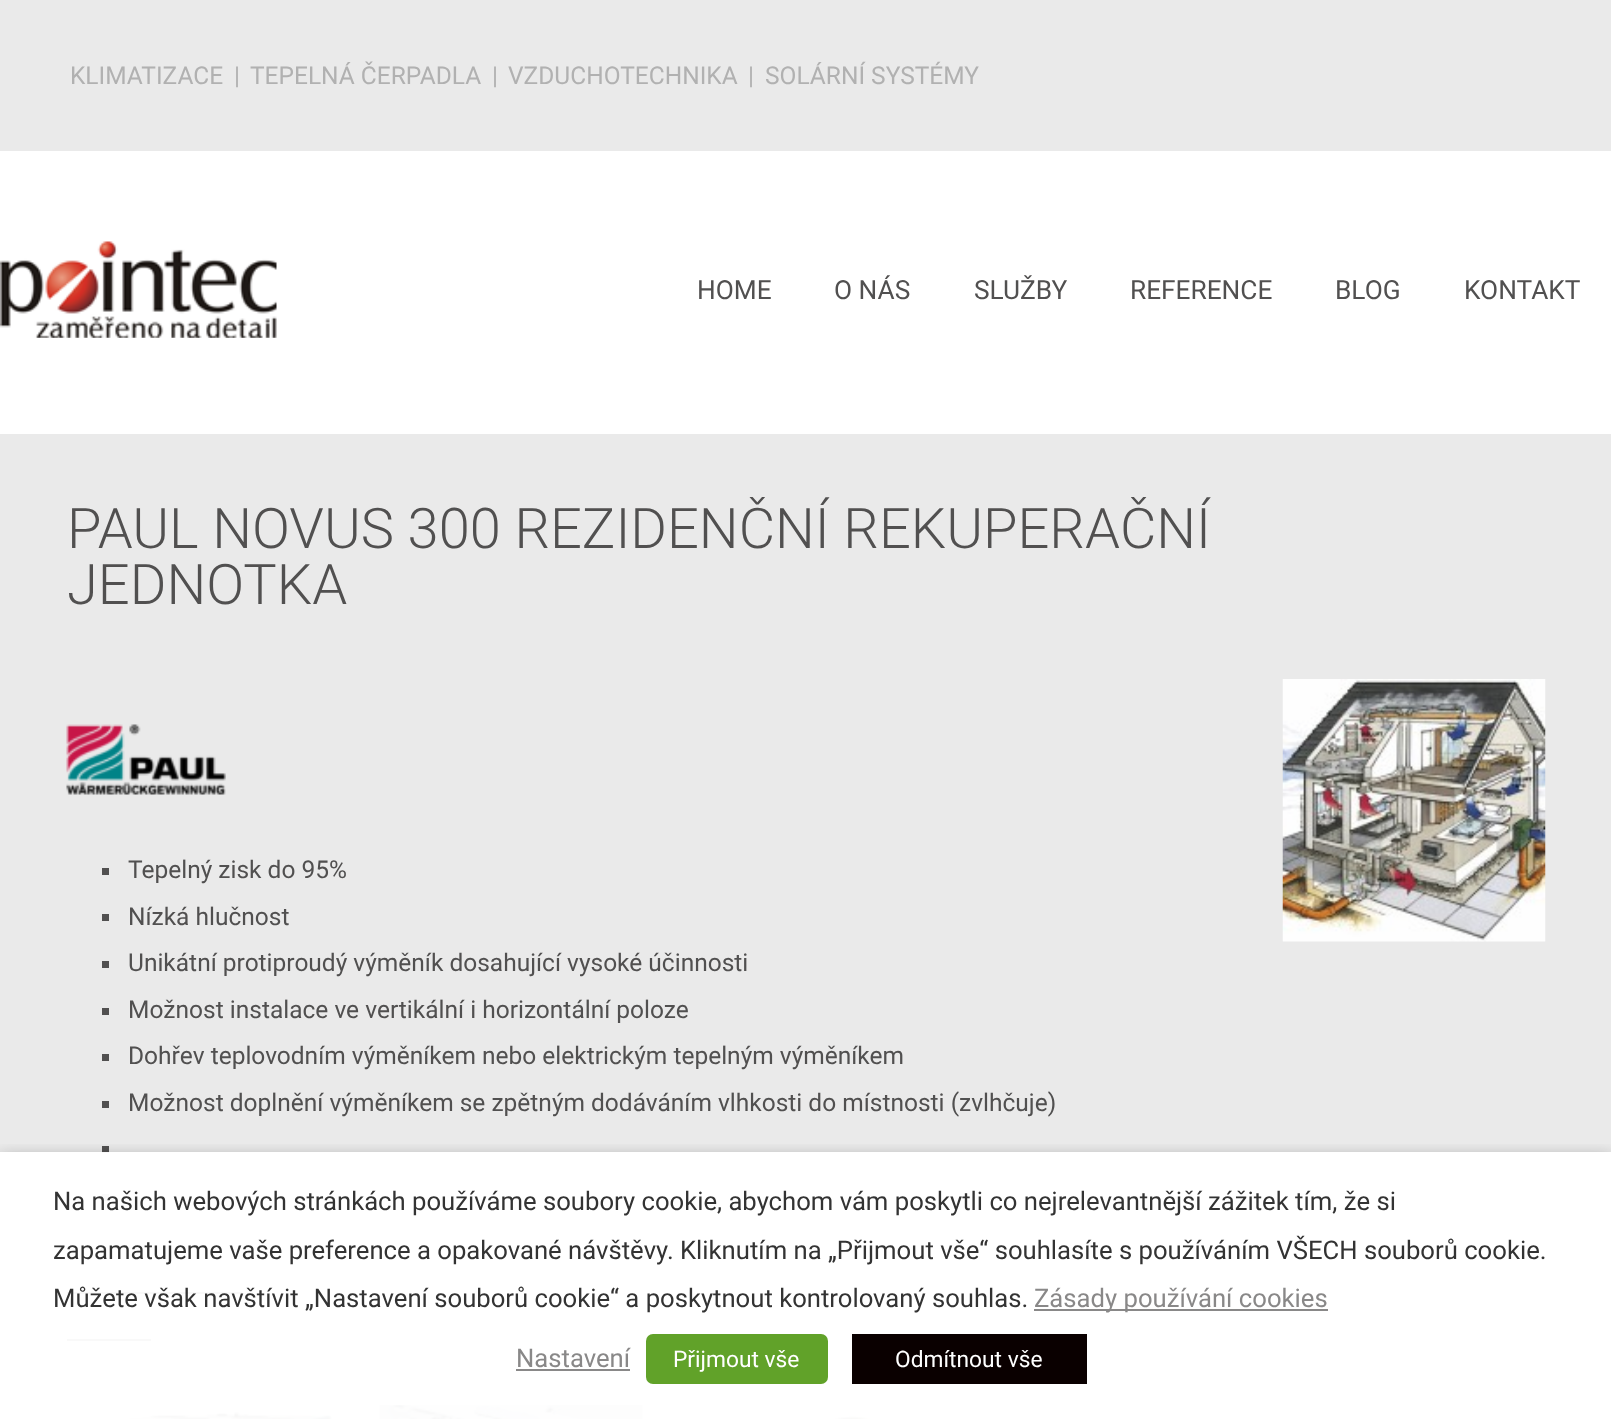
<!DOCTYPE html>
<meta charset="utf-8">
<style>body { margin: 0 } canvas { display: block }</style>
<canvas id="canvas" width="1611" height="1419"></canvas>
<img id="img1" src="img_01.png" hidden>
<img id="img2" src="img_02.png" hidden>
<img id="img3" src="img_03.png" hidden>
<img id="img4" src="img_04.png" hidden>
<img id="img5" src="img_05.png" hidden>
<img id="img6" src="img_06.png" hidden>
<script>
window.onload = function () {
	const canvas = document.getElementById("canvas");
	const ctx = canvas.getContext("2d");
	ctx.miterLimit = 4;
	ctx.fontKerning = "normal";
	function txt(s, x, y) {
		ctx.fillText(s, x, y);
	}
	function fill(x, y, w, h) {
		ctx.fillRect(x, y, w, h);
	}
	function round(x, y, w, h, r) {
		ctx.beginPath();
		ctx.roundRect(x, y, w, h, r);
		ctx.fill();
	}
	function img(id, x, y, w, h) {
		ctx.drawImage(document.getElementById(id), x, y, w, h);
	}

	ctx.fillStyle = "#FFFFFF";
	fill(0, 0, 1611, 1419);
	ctx.fillStyle = "#EAEAEA";
	fill(0, 0, 1611, 151);
	img("img1", 0, 241, 277, 97);
	fill(0, 434, 1611, 985);
	img("img2", 66, 724, 160, 71);
	img("img3", 1282, 679, 264, 263);
	ctx.fillStyle = "#515050";
	fill(102, 868, 7, 7);
	fill(102, 914, 7, 7);
	fill(102, 961, 7, 7);
	fill(102, 1008, 7, 7);
	fill(102, 1054, 7, 7);
	fill(102, 1101, 7, 7);
	fill(102, 1146, 7, 7);
	fill(102, 1194, 7, 7);
	fill(67, 1292, 175, 2);
	fill(67, 1339, 84, 2);
	img("img4", 84, 1405, 263, 14);
	img("img5", 379, 1405, 264, 14);
	img("img6", 675, 1405, 263, 14);
	ctx.save();
	ctx.beginPath();
	ctx.rect(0, 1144, 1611, 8);
	ctx.clip();
	ctx.fillStyle = "rgba(0, 0, 0, 0.5)";
	ctx.filter = "blur(9px)";
	ctx.beginPath();
	ctx.rect(0, 1160, 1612, 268);
	ctx.fill();
	ctx.filter = "none";
	ctx.restore();
	ctx.fillStyle = "rgba(255, 255, 255, 0.97)";
	fill(0, 1152, 1611, 267);
	ctx.fillStyle = "#898888";
	fill(1034, 1309, 294, 2);
	fill(516, 1369, 114, 2);
	ctx.fillStyle = "#61A229";
	round(646, 1334, 182, 50, 7);
	ctx.fillStyle = "#0A0000";
	fill(852, 1334, 235, 50);
	ctx.font = "24.5px Roboto";
	ctx.fillStyle = "#B1B1B1";
	txt("KLIMATIZACE", 70, 84);
	txt("|", 234, 84);
	txt("TEPELNÁ ČERPADLA", 250, 84);
	txt("|", 492, 84);
	txt("VZDUCHOTECHNIKA", 508, 84);
	txt("|", 748, 84);
	txt("SOLÁRNÍ SYSTÉMY", 765, 84);
	ctx.font = "26.25px Roboto";
	ctx.fillStyle = "#515050";
	txt("HOME", 697, 299);
	txt("O NÁS", 834, 299);
	txt("SLUŽBY", 974, 299);
	txt("REFERENCE", 1130, 299);
	txt("BLOG", 1335, 299);
	txt("KONTAKT", 1464, 299);
	ctx.font = "300 56px Roboto";
	txt("PAUL NOVUS 300 REZIDENČNÍ REKUPERAČNÍ", 67, 548);
	txt("JEDNOTKA", 67, 604);
	ctx.font = "24.5px Roboto";
	txt("Tepelný zisk do 95%", 128, 878);
	txt("Nízká hlučnost", 128, 925);
	txt("Unikátní protiproudý výměník dosahující vysoké účinnosti", 128, 971);
	txt("Možnost instalace ve vertikální i horizontální poloze", 128, 1018);
	txt("Dohřev teplovodním výměníkem nebo elektrickým tepelným výměníkem", 128, 1064);
	txt("Možnost doplnění výměníkem se zpětným dodáváním vlhkosti do místnosti (zvlhčuje)", 128, 1111);
	ctx.font = "25.67px Roboto";
	ctx.fillStyle = "#333333";
	txt("Na našich webových stránkách používáme soubory cookie, abychom vám poskytli co nejrelevantnější zážitek tím, že si", 53, 1210);
	txt("zapamatujeme vaše preference a opakované návštěvy. Kliknutím na „Přijmout vše“ souhlasíte s používáním VŠECH souborů cookie.", 53, 1259);
	txt("Můžete však navštívit „Nastavení souborů cookie“ a poskytnout kontrolovaný souhlas.", 53, 1307);
	ctx.fillStyle = "#898888";
	txt("Zásady používání cookies", 1034, 1307);
	txt("Nastavení", 516, 1367);
	ctx.font = "22.75px Roboto";
	ctx.fillStyle = "#FFFFFF";
	txt("Přijmout vše", 673, 1367);
	txt("Odmítnout vše", 895, 1367);
};
</script>
